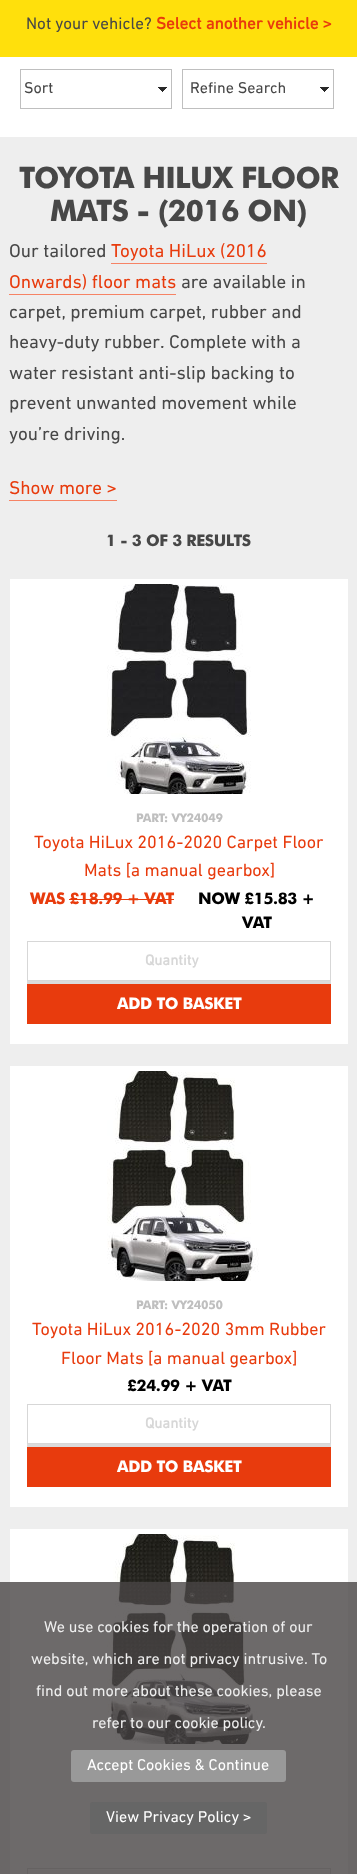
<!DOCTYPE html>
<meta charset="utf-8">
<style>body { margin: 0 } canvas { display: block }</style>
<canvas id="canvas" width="357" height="1874"></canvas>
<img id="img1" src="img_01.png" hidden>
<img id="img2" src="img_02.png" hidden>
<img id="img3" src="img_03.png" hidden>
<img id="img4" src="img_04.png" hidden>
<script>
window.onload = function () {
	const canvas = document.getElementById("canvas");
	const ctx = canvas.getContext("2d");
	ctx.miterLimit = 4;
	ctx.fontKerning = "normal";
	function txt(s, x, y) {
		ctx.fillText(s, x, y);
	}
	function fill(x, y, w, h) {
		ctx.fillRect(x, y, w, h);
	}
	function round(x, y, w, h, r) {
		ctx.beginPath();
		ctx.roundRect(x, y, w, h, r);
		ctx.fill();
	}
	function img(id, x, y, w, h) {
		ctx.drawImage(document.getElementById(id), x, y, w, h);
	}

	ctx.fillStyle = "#FFFFFF";
	fill(0, 0, 357, 1874);
	ctx.fillStyle = "#FFE00C";
	fill(0, 0, 357, 57);
	img("img1", 158, 87, 9, 5);
	ctx.strokeStyle = "#BFBFBF";
	ctx.strokeRect(20.5, 69.5, 151, 39);
	img("img1", 320, 87, 9, 5);
	ctx.strokeRect(182.5, 69.5, 151, 39);
	ctx.fillStyle = "#EEEEEE";
	fill(0, 137, 357, 1737);
	ctx.fillStyle = "#F68365";
	fill(111, 263, 156, 1);
	fill(9, 294, 167, 1);
	fill(9, 500, 108, 1);
	ctx.fillStyle = "#FFFFFF";
	fill(10, 579, 338, 465);
	img("img2", 107, 584, 144, 210);
	ctx.fillStyle = "#E83B0D";
	fill(69, 899, 105, 1);
	ctx.save();
	ctx.beginPath();
	ctx.moveTo(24, 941);
	ctx.lineTo(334, 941);
	ctx.lineTo(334, 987);
	ctx.lineTo(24, 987);
	ctx.closePath();
	ctx.moveTo(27, 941);
	ctx.lineTo(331, 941);
	ctx.lineTo(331, 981);
	ctx.lineTo(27, 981);
	ctx.closePath();
	ctx.clip("evenodd");
	ctx.fillStyle = "rgba(215, 215, 215, 0.9)";
	ctx.filter = "blur(0.5px)";
	ctx.beginPath();
	ctx.rect(27, 944, 304, 40);
	ctx.fill();
	ctx.filter = "none";
	ctx.restore();
	ctx.strokeStyle = "#D7D7D7";
	ctx.strokeRect(27.5, 941.5, 303, 39);
	fill(27, 984, 304, 40);
	ctx.fillStyle = "#FFFFFF";
	fill(10, 1066, 338, 441);
	img("img3", 107, 1071, 152, 210);
	ctx.save();
	ctx.beginPath();
	ctx.moveTo(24, 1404);
	ctx.lineTo(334, 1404);
	ctx.lineTo(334, 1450);
	ctx.lineTo(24, 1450);
	ctx.closePath();
	ctx.moveTo(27, 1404);
	ctx.lineTo(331, 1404);
	ctx.lineTo(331, 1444);
	ctx.lineTo(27, 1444);
	ctx.closePath();
	ctx.clip("evenodd");
	ctx.fillStyle = "rgba(215, 215, 215, 0.9)";
	ctx.filter = "blur(0.5px)";
	ctx.beginPath();
	ctx.rect(27, 1407, 304, 40);
	ctx.fill();
	ctx.filter = "none";
	ctx.restore();
	ctx.strokeRect(27.5, 1404.5, 303, 39);
	ctx.fillStyle = "#E83B0D";
	fill(27, 1447, 304, 40);
	ctx.fillStyle = "#FFFFFF";
	fill(10, 1529, 338, 345);
	img("img4", 107, 1534, 152, 210);
	ctx.strokeRect(27.5, 1868.5, 303, 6);
	ctx.fillStyle = "rgba(73, 69, 69, 0.8)";
	fill(0, 1582, 357, 292);
	ctx.fillStyle = "#999999";
	round(71, 1750, 215, 32, 3);
	ctx.fillStyle = "#666666";
	round(90, 1802, 177, 32, 3);
	ctx.font = "17px DIN Next";
	ctx.fillStyle = "#474747";
	txt("Not your vehicle?", 26, 29);
	ctx.font = "bold 17px DIN Next";
	ctx.fillStyle = "#E83B0D";
	txt("Select another vehicle >", 156, 29);
	ctx.font = "16px DIN Next";
	ctx.fillStyle = "#474747";
	txt("Sort", 24, 93);
	txt("Refine Search", 190, 93);
	ctx.letterSpacing = "-0.75px";
	ctx.font = "bold 29.6px 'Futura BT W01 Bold'";
	txt("TOYOTA HILUX FLOOR", 19, 188);
	txt("MATS - (2016 ON)", 50, 221);
	ctx.letterSpacing = "0px";
	ctx.font = "19px DIN Next";
	txt("Our tailored", 9, 257);
	ctx.fillStyle = "#E83B0D";
	txt("Toyota HiLux (2016", 111, 257);
	txt("Onwards) floor mats", 9, 288);
	ctx.fillStyle = "#474747";
	txt("are available in", 181, 288);
	txt("carpet, premium carpet, rubber and", 9, 318);
	txt("heavy-duty rubber. Complete with a", 9, 348);
	txt("water resistant anti-slip backing to", 9, 379);
	txt("prevent unwanted movement while", 9, 409);
	txt("you’re driving.", 9, 440);
	ctx.fillStyle = "#E83B0D";
	txt("Show more >", 9, 494);
	ctx.letterSpacing = "-0.4px";
	ctx.font = "bold 16px 'Futura BT W01 Bold'";
	ctx.fillStyle = "#474747";
	txt("1 - 3 OF 3 RESULTS", 106, 546);
	ctx.letterSpacing = "-0.25px";
	ctx.font = "bold 12px 'Futura BT W01 Bold'";
	ctx.fillStyle = "#BFBFBF";
	txt("PART: VY24049", 136, 822);
	ctx.letterSpacing = "0px";
	ctx.font = "18px DIN Next";
	ctx.fillStyle = "#E83B0D";
	txt("Toyota HiLux 2016-2020 Carpet Floor", 34, 848);
	txt("Mats [a manual gearbox]", 84, 876);
	ctx.letterSpacing = "-0.4px";
	ctx.font = "bold 16px 'Futura BT W01 Bold'";
	txt("WAS £18.99 + VAT", 30, 904);
	ctx.fillStyle = "#000000";
	txt("NOW £15.83 +", 198, 904);
	txt("VAT", 242, 928);
	ctx.letterSpacing = "0px";
	ctx.font = "bold 15px DIN Next";
	ctx.fillStyle = "#D7D7D7";
	txt("Quantity", 145, 965);
	ctx.letterSpacing = "-0.4px";
	ctx.font = "bold 16px 'Futura BT W01 Bold'";
	ctx.fillStyle = "#FFFFFF";
	txt("ADD TO BASKET", 117, 1009);
	ctx.letterSpacing = "-0.25px";
	ctx.font = "bold 12px 'Futura BT W01 Bold'";
	ctx.fillStyle = "#BFBFBF";
	txt("PART: VY24050", 136, 1309);
	ctx.letterSpacing = "0px";
	ctx.font = "18px DIN Next";
	ctx.fillStyle = "#E83B0D";
	txt("Toyota HiLux 2016-2020 3mm Rubber", 32, 1335);
	txt("Floor Mats [a manual gearbox]", 61, 1364);
	ctx.letterSpacing = "-0.4px";
	ctx.font = "bold 16px 'Futura BT W01 Bold'";
	ctx.fillStyle = "#000000";
	txt("£24.99 + VAT", 127, 1391);
	ctx.letterSpacing = "0px";
	ctx.font = "bold 15px DIN Next";
	ctx.fillStyle = "#D7D7D7";
	txt("Quantity", 145, 1428);
	ctx.letterSpacing = "-0.4px";
	ctx.font = "bold 16px 'Futura BT W01 Bold'";
	ctx.fillStyle = "#FFFFFF";
	txt("ADD TO BASKET", 117, 1472);
	ctx.letterSpacing = "0px";
	ctx.font = "16px DIN Next";
	ctx.fillStyle = "#EEEEEE";
	txt("We use cookies for the operation of our", 44, 1632);
	txt("website, which are not privacy intrusive. To", 31, 1664);
	txt("find out more about these cookies, please", 36, 1696);
	txt("refer to our cookie policy.", 92, 1728);
	ctx.fillStyle = "#FFFFFF";
	txt("Accept Cookies & Continue", 87, 1770);
	txt("View Privacy Policy >", 106, 1822);
};
</script>
